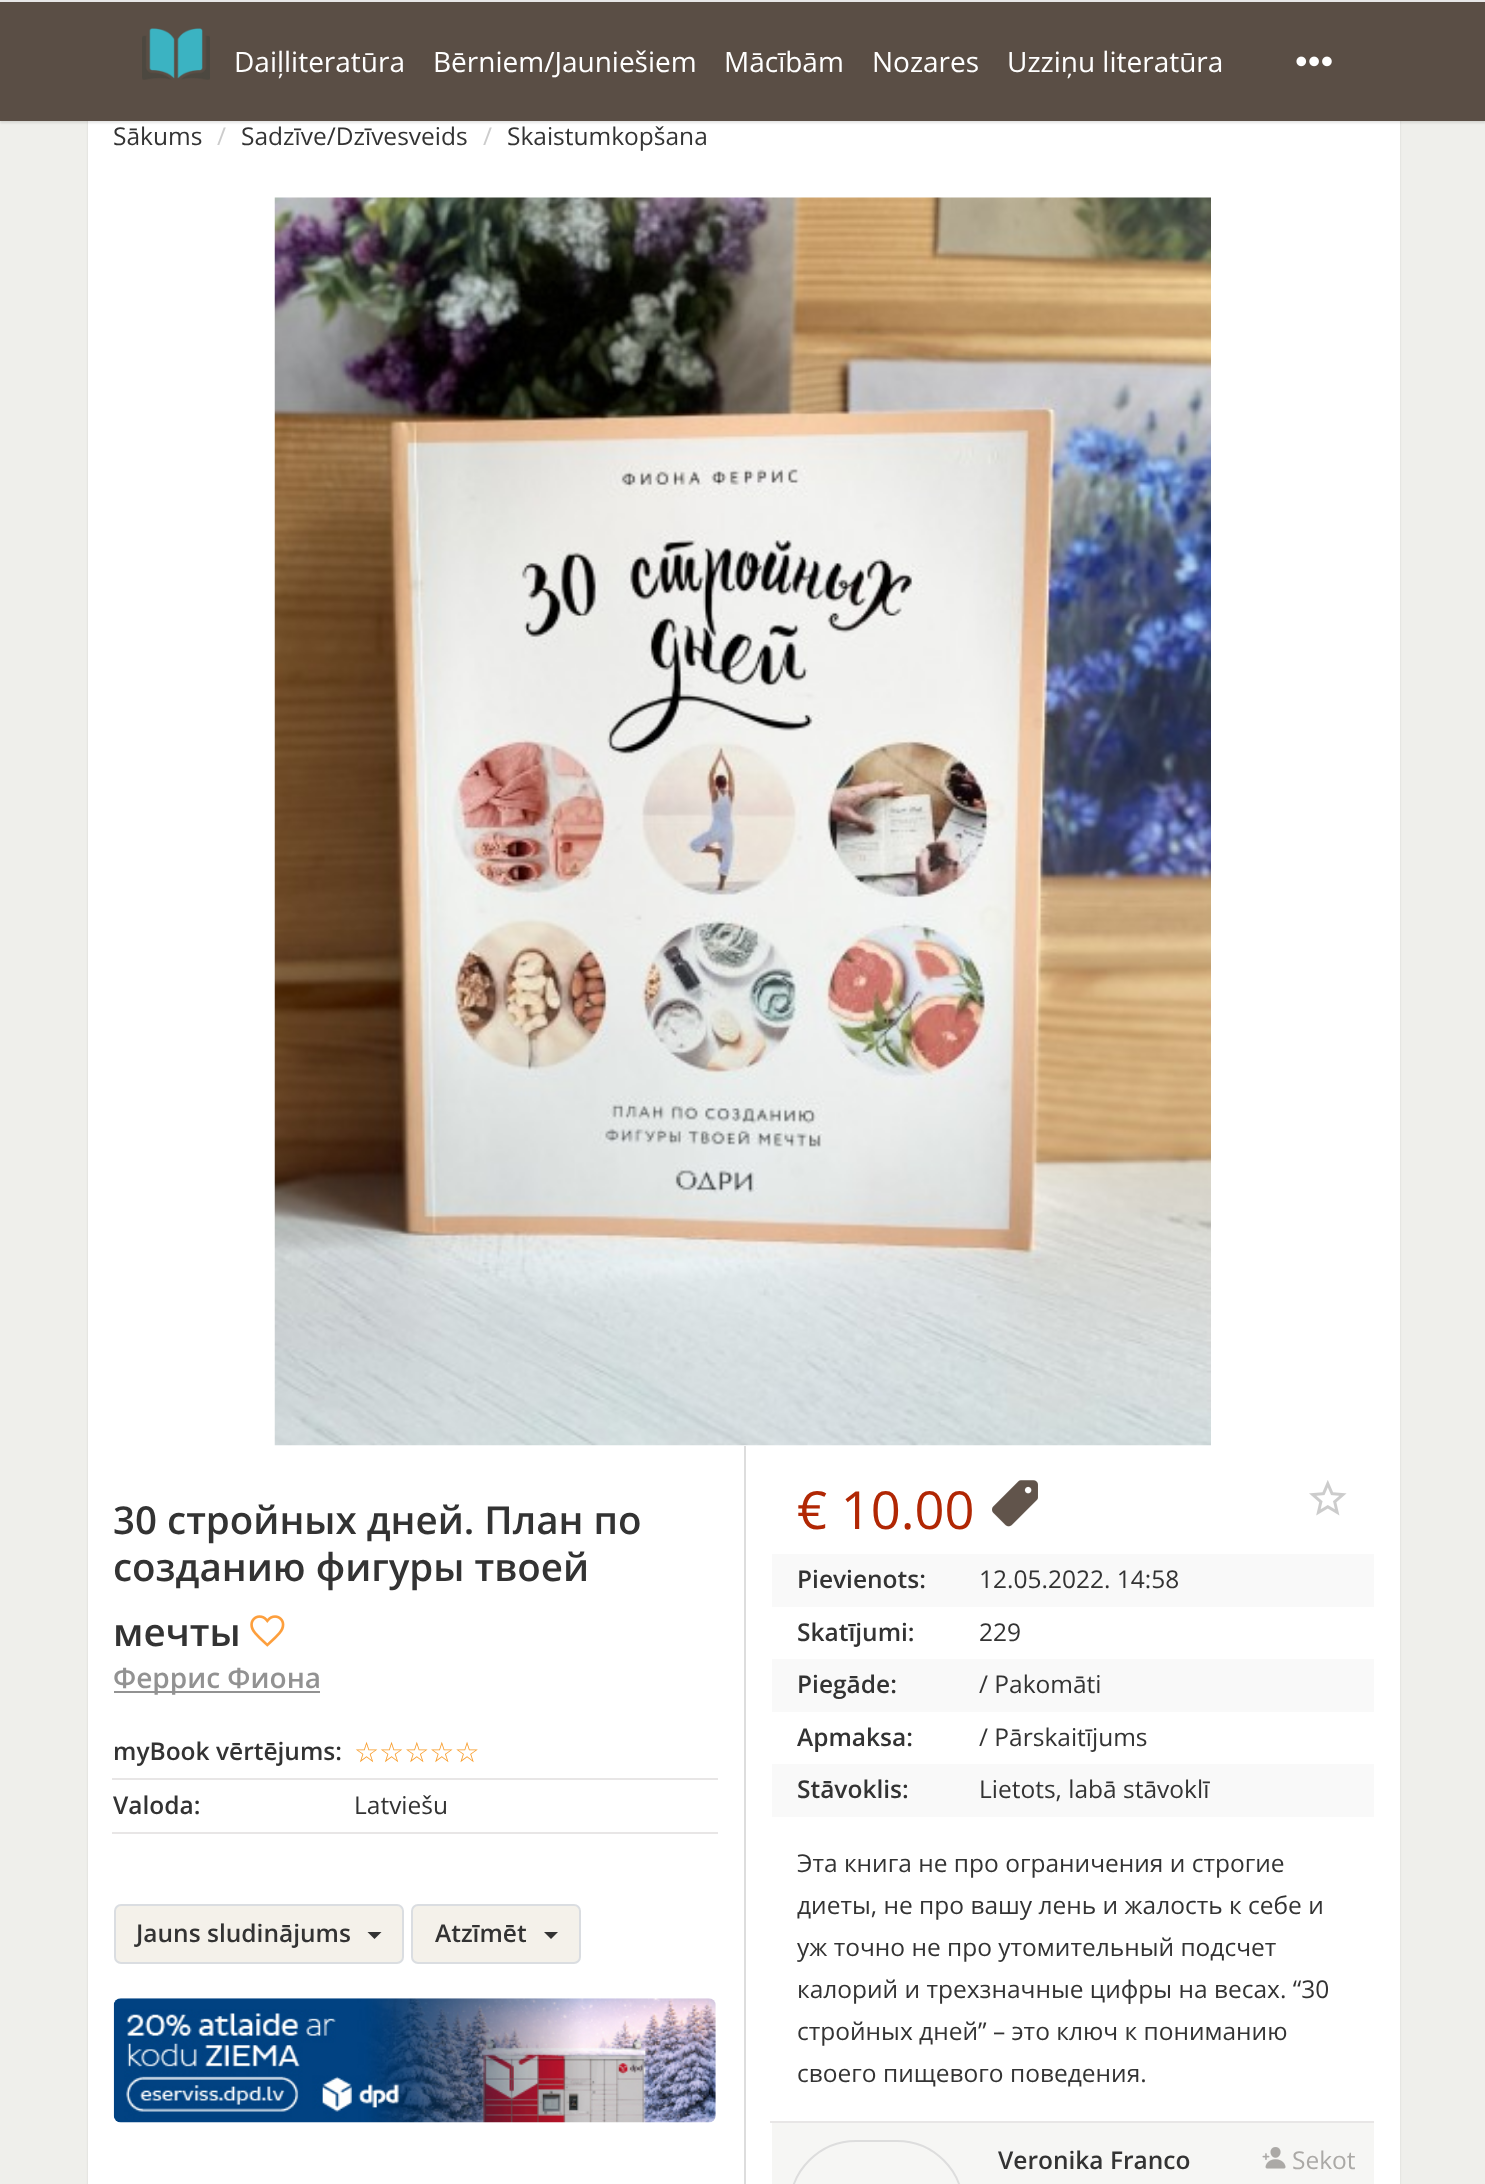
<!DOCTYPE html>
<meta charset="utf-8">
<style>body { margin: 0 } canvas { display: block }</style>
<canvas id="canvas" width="1485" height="2184"></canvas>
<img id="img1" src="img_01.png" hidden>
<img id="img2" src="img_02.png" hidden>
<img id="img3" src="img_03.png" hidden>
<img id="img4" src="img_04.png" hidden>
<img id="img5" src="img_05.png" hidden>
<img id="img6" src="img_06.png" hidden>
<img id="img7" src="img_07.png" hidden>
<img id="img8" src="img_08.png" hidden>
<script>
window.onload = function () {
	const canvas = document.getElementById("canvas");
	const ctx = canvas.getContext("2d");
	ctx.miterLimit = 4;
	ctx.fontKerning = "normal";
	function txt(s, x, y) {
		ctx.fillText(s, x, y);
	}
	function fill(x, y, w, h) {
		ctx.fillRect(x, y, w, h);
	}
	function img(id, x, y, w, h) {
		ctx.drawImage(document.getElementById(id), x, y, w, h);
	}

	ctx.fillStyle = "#EFEFEB";
	fill(0, 0, 1485, 2184);
	ctx.fillStyle = "rgba(0, 0, 0, 0.1)";
	ctx.filter = "blur(1px)";
	ctx.beginPath();
	ctx.roundRect(88, 30, 1312, 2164, 7);
	ctx.fill();
	ctx.filter = "none";
	ctx.fillStyle = "#FFFFFF";
	fill(88, 121, 1312, 2063);
	ctx.fillStyle = "rgba(0, 0, 0, 0.1)";
	ctx.filter = "blur(1px)";
	ctx.beginPath();
	ctx.rect(0, 2, 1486, 121);
	ctx.fill();
	ctx.filter = "none";
	ctx.fillStyle = "#5A4E45";
	fill(0, 2, 1485, 119);
	ctx.fillStyle = "#E7E7E7";
	fill(0, 0, 1485, 2);
	img("img1", 142, 28, 68, 52);
	img("img2", 1296, 56, 36, 11);
	img("img3", 274, 197, 937, 1249);
	img("img4", 250, 1615, 35, 32);
	ctx.fillStyle = "#929292";
	fill(114, 1691, 206, 2);
	ctx.fillStyle = "#E8E6E6";
	fill(112, 1778, 606, 2);
	fill(112, 1832, 606, 2);
	ctx.fillStyle = "#F4F1EA";
	ctx.beginPath();
	ctx.roundRect(115, 1905, 288, 58, 6);
	ctx.fill();
	ctx.strokeStyle = "#DADDE1";
	ctx.lineWidth = 2;
	ctx.stroke();
	ctx.fillStyle = "#333333";
	ctx.beginPath();
	ctx.moveTo(367.5, 1932);
	ctx.lineTo(381.5, 1932);
	ctx.lineTo(374.5, 1939);
	ctx.closePath();
	ctx.fill();
	ctx.fillStyle = "#F4F1EA";
	ctx.beginPath();
	ctx.roundRect(412, 1905, 168, 58, 6);
	ctx.fill();
	ctx.stroke();
	ctx.fillStyle = "#333333";
	ctx.beginPath();
	ctx.moveTo(544, 1932);
	ctx.lineTo(558, 1932);
	ctx.lineTo(551, 1939);
	ctx.closePath();
	ctx.fill();
	img("img5", 113, 1998, 603, 125);
	ctx.fillStyle = "#DDDDDD";
	fill(744, 1446, 2, 738);
	img("img6", 992, 1480, 46, 47);
	img("img7", 1309, 1480, 38, 36);
	ctx.fillStyle = "#F9F9F9";
	fill(772, 1554, 602, 53);
	fill(772, 1659, 602, 53);
	fill(772, 1764, 602, 53);
	ctx.fillStyle = "#F6F6F4";
	fill(772, 2123, 602, 61);
	ctx.fillStyle = "#E8E6E6";
	fill(770, 2121, 604, 2);
	ctx.beginPath();
	ctx.roundRect(790, 2141, 173, 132, 86.5);
	ctx.strokeStyle = "#DDDDDD";
	ctx.stroke();
	img("img8", 1262, 2147, 24, 22);
	ctx.font = "28px Open Sans";
	ctx.fillStyle = "#FFFFFF";
	txt("Daiļliteratūra", 234, 72);
	txt("Bērniem/Jauniešiem", 433, 72);
	txt("Mācībām", 724, 72);
	txt("Nozares", 872, 72);
	txt("Uzziņu literatūra", 1007, 72);
	ctx.font = "24.5px Open Sans";
	ctx.fillStyle = "#333333";
	txt("Sākums", 113, 145);
	ctx.fillStyle = "#CCCCCC";
	txt("/", 217, 145);
	ctx.fillStyle = "#333333";
	txt("Sadzīve/Dzīvesveids", 241, 145);
	ctx.fillStyle = "#CCCCCC";
	txt("/", 483, 145);
	ctx.fillStyle = "#333333";
	txt("Skaistumkopšana", 507, 145);
	ctx.font = "600 38.5px Open Sans";
	txt("30 стройных дней. План по", 113, 1534);
	txt("созданию фигуры твоей", 113, 1581);
	txt("мечты", 113, 1646);
	ctx.font = "600 28px Open Sans";
	ctx.fillStyle = "#929292";
	txt("Феррис Фиона", 113, 1688);
	ctx.font = "600 24.5px Open Sans";
	ctx.fillStyle = "#333333";
	txt("myBook vērtējums:", 113, 1760);
	ctx.font = "28px DejaVu Sans";
	ctx.fillStyle = "#F89D2C";
	txt("☆☆☆☆☆", 354, 1762);
	ctx.font = "600 24.5px Open Sans";
	ctx.fillStyle = "#333333";
	txt("Valoda:", 113, 1814);
	ctx.font = "24.5px Open Sans";
	txt("Latviešu", 354, 1814);
	ctx.font = "600 24.5px Open Sans";
	txt("Jauns sludinājums", 136, 1942);
	txt("Atzīmēt", 435, 1942);
	ctx.font = "52.5px Open Sans";
	ctx.fillStyle = "#B12704";
	txt("€ 10.00", 797, 1529);
	ctx.font = "600 24.5px Open Sans";
	ctx.fillStyle = "#333333";
	txt("Pievienots:", 797, 1588);
	ctx.font = "24.5px Open Sans";
	txt("12.05.2022. 14:58", 979, 1588);
	ctx.font = "600 24.5px Open Sans";
	txt("Skatījumi:", 797, 1641);
	ctx.font = "24.5px Open Sans";
	txt("229", 979, 1641);
	ctx.font = "600 24.5px Open Sans";
	txt("Piegāde:", 797, 1693);
	ctx.font = "24.5px Open Sans";
	txt("/ Pakomāti", 979, 1693);
	ctx.font = "600 24.5px Open Sans";
	txt("Apmaksa:", 797, 1746);
	ctx.font = "24.5px Open Sans";
	txt("/ Pārskaitījums", 979, 1746);
	ctx.font = "600 24.5px Open Sans";
	txt("Stāvoklis:", 797, 1798);
	ctx.font = "24.5px Open Sans";
	txt("Lietots, labā stāvoklī", 979, 1798);
	txt("Эта книга не про ограничения и строгие", 797, 1872);
	txt("диеты, не про вашу лень и жалость к себе и", 797, 1914);
	txt("уж точно не про утомительный подсчет", 797, 1956);
	txt("калорий и трехзначные цифры на весах. “30", 797, 1998);
	txt("стройных дней” – это ключ к пониманию", 797, 2040);
	txt("своего пищевого поведения.", 797, 2082);
	ctx.font = "600 24.5px Open Sans";
	txt("Veronika Franco", 998, 2169);
	ctx.font = "24.5px Open Sans";
	ctx.fillStyle = "#ABA9A6";
	txt("Sekot", 1292, 2169);
};
</script>
